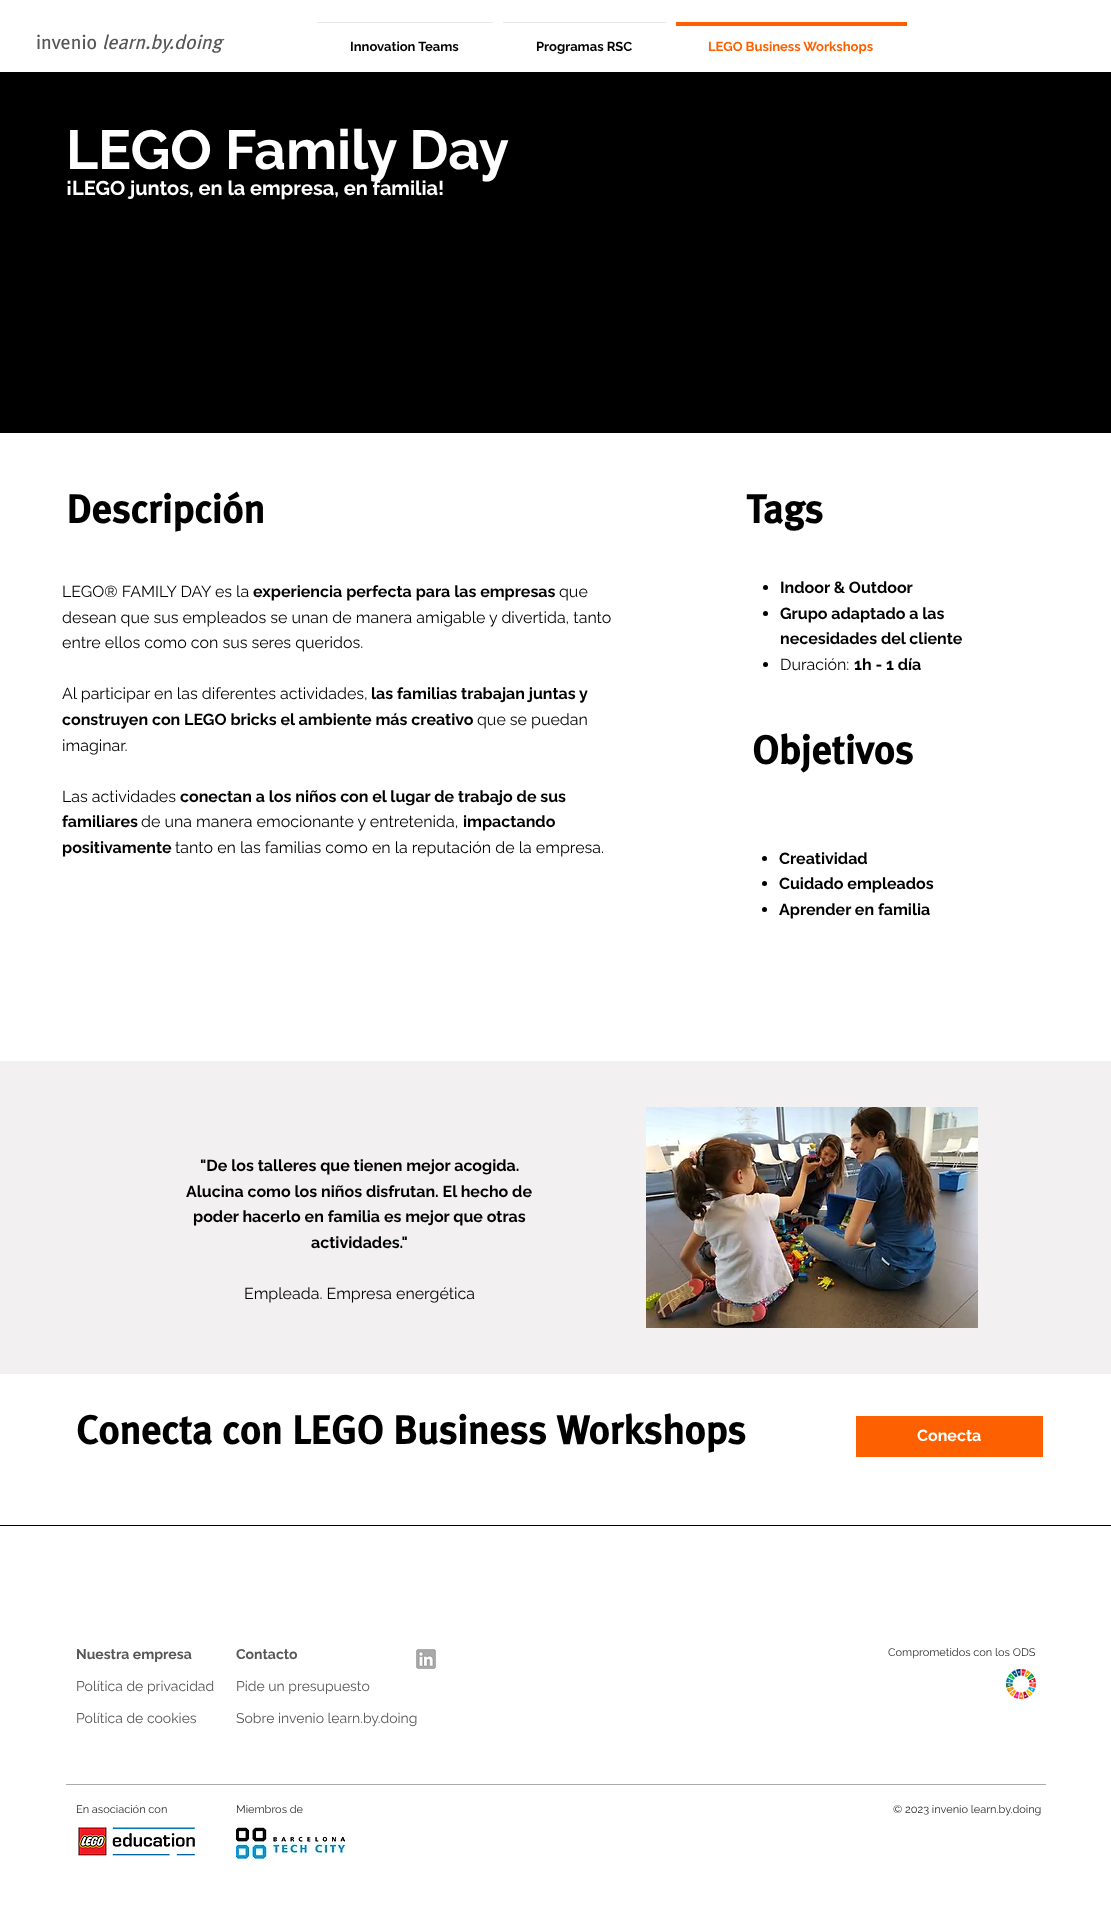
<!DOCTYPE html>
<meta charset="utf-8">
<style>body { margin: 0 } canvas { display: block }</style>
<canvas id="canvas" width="1111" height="1907"></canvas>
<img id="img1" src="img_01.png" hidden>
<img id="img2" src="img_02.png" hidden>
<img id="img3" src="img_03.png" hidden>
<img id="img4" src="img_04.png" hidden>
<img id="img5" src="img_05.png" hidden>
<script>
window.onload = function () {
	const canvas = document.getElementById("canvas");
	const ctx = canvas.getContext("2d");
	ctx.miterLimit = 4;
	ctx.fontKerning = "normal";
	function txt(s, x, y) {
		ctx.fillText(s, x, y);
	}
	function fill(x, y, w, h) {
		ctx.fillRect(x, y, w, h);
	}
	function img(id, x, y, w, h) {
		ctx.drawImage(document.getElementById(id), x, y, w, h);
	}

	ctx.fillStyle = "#FFFFFF";
	fill(0, 0, 1111, 1907);
	ctx.fillStyle = "#E8E8E8";
	fill(317, 22, 176, 1);
	fill(503, 22, 163, 1);
	ctx.fillStyle = "#FC6000";
	fill(676, 22, 231, 4);
	ctx.fillStyle = "#000000";
	fill(0, 72, 1111, 361);
	ctx.beginPath();
	ctx.arc(765.5, 587.5, 2.5, 0, Math.PI * 2);
	ctx.fill();
	ctx.beginPath();
	ctx.arc(765.5, 613.5, 2.5, 0, Math.PI * 2);
	ctx.fill();
	ctx.beginPath();
	ctx.arc(765.5, 664.5, 2.5, 0, Math.PI * 2);
	ctx.fill();
	ctx.beginPath();
	ctx.arc(764.5, 858.5, 2.5, 0, Math.PI * 2);
	ctx.fill();
	ctx.beginPath();
	ctx.arc(764.5, 883.5, 2.5, 0, Math.PI * 2);
	ctx.fill();
	ctx.beginPath();
	ctx.arc(764.5, 909.5, 2.5, 0, Math.PI * 2);
	ctx.fill();
	ctx.fillStyle = "#F2F0F0";
	fill(0, 1061, 1111, 313);
	img("img1", 646, 1107, 332, 221);
	ctx.fillStyle = "#FC6000";
	fill(856, 1416, 187, 41);
	ctx.fillStyle = "#000000";
	fill(0, 1525, 1111, 1);
	img("img2", 416, 1649, 20, 20);
	img("img3", 1006, 1669, 30, 30);
	ctx.fillStyle = "#ABABAB";
	fill(66, 1784, 980, 1);
	img("img4", 78, 1827, 117, 29);
	img("img5", 236, 1824, 110, 39);
	ctx.font = "20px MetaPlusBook";
	ctx.fillStyle = "#575757";
	txt("invenio", 36, 49);
	ctx.font = "italic 20px MetaPlusBook";
	txt("learn.by.doing", 102, 49);
	ctx.font = "bold 13px Raleway";
	ctx.fillStyle = "#000000";
	txt("Innovation Teams", 350, 51);
	txt("Programas RSC", 536, 51);
	ctx.fillStyle = "#FC6000";
	txt("LEGO Business Workshops", 708, 51);
	ctx.font = "bold 55px Raleway";
	ctx.fillStyle = "#FFFFFF";
	txt("LEGO Family Day", 66, 169);
	ctx.font = "bold 20px Raleway";
	txt("¡LEGO juntos, en la empresa, en familia!", 66, 195);
	ctx.font = "bold 40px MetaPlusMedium";
	ctx.fillStyle = "#000000";
	txt("Descripción", 66, 523);
	txt("Tags", 746, 523);
	ctx.font = "16px Raleway";
	txt("LEGO® FAMILY DAY es la", 62, 597);
	ctx.font = "bold 16px Raleway";
	txt("experiencia perfecta para las empresas", 253, 597);
	ctx.font = "16px Raleway";
	txt("que", 559, 597);
	txt("desean que sus empleados se unan de manera amigable y divertida, tanto", 62, 623);
	txt("entre ellos como con sus seres queridos.", 62, 648);
	txt("Al participar en las diferentes actividades,", 62, 699);
	ctx.font = "bold 16px Raleway";
	txt("las familias trabajan juntas y", 371, 699);
	txt("construyen con LEGO bricks el ambiente más creativo", 62, 725);
	ctx.font = "16px Raleway";
	txt("que se puedan", 477, 725);
	txt("imaginar.", 62, 751);
	txt("Las actividades", 62, 802);
	ctx.font = "bold 16px Raleway";
	txt("conectan a los niños con el lugar de trabajo de sus", 180, 802);
	txt("familiares", 62, 827);
	ctx.font = "16px Raleway";
	txt("de una manera emocionante y entretenida,", 141, 827);
	ctx.font = "bold 16px Raleway";
	txt("impactando", 463, 827);
	txt("positivamente", 62, 853);
	ctx.font = "16px Raleway";
	txt("tanto en las familias como en la reputación de la empresa.", 175, 853);
	ctx.font = "bold 16px Raleway";
	txt("Indoor & Outdoor", 780, 593);
	txt("Grupo adaptado a las", 780, 619);
	txt("necesidades del cliente", 780, 644);
	ctx.font = "16px Raleway";
	txt("Duración:", 780, 670);
	ctx.font = "bold 16px Raleway";
	txt("1h - 1 día", 854, 670);
	ctx.font = "bold 40px MetaPlusMedium";
	txt("Objetivos", 752, 764);
	ctx.font = "bold 16px Raleway";
	txt("Creatividad", 779, 864);
	txt("Cuidado empleados", 779, 889);
	txt("Aprender en familia", 779, 915);
	txt("\"De los talleres que tienen mejor acogida.", 200, 1171);
	txt("Alucina como los niños disfrutan. El hecho de", 186, 1197);
	txt("poder hacerlo en familia es mejor que otras", 193, 1222);
	txt("actividades.\"", 311, 1248);
	ctx.font = "16px Raleway";
	txt("Empleada. Empresa energética", 244, 1299);
	ctx.wordSpacing = "0.5px";
	ctx.font = "bold 40px MetaPlusMedium";
	txt("Conecta con LEGO Business Workshops", 76, 1444);
	ctx.wordSpacing = "0px";
	ctx.font = "bold 16px Raleway";
	ctx.fillStyle = "#FFFFFF";
	txt("Conecta", 917, 1441);
	ctx.font = "bold 14px Raleway";
	ctx.fillStyle = "#575757";
	txt("Nuestra empresa", 76, 1659);
	ctx.font = "14px Raleway";
	txt("Política de privacidad", 76, 1691);
	txt("Política de cookies", 76, 1723);
	ctx.font = "bold 14px Raleway";
	txt("Contacto", 236, 1659);
	ctx.font = "14px Raleway";
	txt("Pide un presupuesto", 236, 1691);
	txt("Sobre invenio learn.by.doing", 236, 1723);
	ctx.font = "11px Raleway";
	ctx.fillStyle = "#2D2D2D";
	txt("Comprometidos con los ODS", 888, 1656);
	txt("En asociación con", 76, 1813);
	txt("Miembros de", 236, 1813);
	txt("© 2023 invenio learn.by.doing", 893, 1813);
};
</script>
